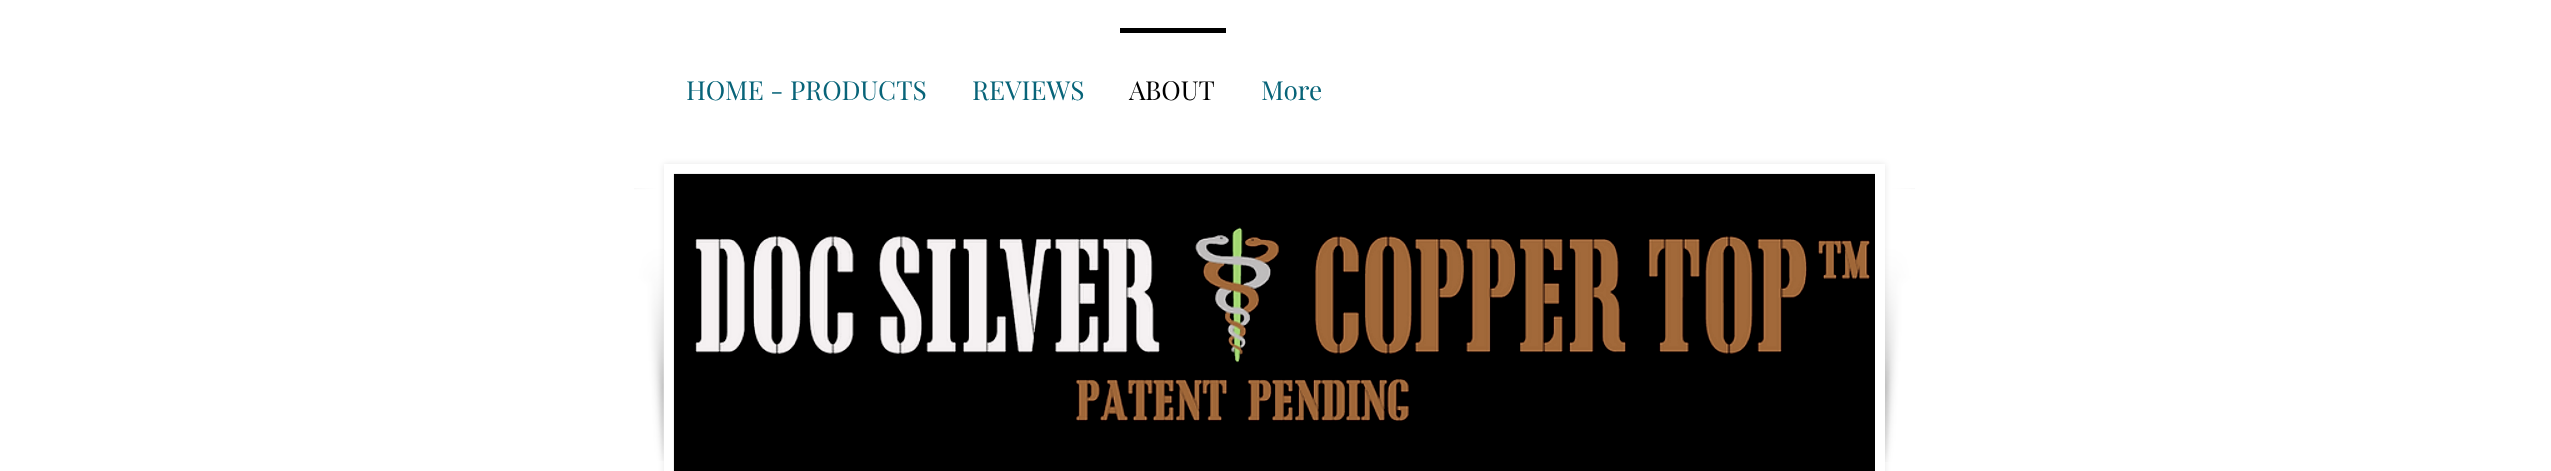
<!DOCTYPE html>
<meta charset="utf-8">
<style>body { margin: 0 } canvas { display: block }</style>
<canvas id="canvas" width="2551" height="471"></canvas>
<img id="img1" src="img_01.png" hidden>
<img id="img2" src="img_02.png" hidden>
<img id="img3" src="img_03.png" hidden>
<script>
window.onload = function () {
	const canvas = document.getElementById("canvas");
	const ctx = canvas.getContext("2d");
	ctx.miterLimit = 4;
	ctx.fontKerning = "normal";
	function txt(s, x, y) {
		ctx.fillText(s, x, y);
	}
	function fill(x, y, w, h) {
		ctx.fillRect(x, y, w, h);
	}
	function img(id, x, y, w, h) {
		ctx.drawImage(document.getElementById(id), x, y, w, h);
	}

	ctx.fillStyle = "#FFFFFF";
	fill(0, 0, 2551, 471);
	ctx.fillStyle = "#000000";
	fill(1120, 28, 106, 5);
	ctx.save();
	ctx.beginPath();
	ctx.moveTo(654, 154);
	ctx.lineTo(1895, 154);
	ctx.lineTo(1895, 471);
	ctx.lineTo(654, 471);
	ctx.closePath();
	ctx.moveTo(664, 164);
	ctx.lineTo(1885, 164);
	ctx.lineTo(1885, 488);
	ctx.lineTo(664, 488);
	ctx.closePath();
	ctx.clip("evenodd");
	ctx.fillStyle = "rgba(0, 0, 0, 0.1)";
	ctx.filter = "blur(3px)";
	ctx.beginPath();
	ctx.rect(664, 164, 1221, 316);
	ctx.fill();
	ctx.filter = "none";
	ctx.restore();
	img("img1", 634, 188, 30, 273);
	img("img2", 673, 173, 1202, 298);
	img("img3", 1885, 188, 30, 274);
	ctx.font = "26.25px Playfair Display";
	ctx.fillStyle = "#086479";
	txt("HOME - PRODUCTS", 686, 100);
	txt("REVIEWS", 972, 100);
	ctx.fillStyle = "#000000";
	txt("ABOUT", 1129, 100);
	ctx.fillStyle = "#086479";
	txt("More", 1261, 100);
};
</script>
